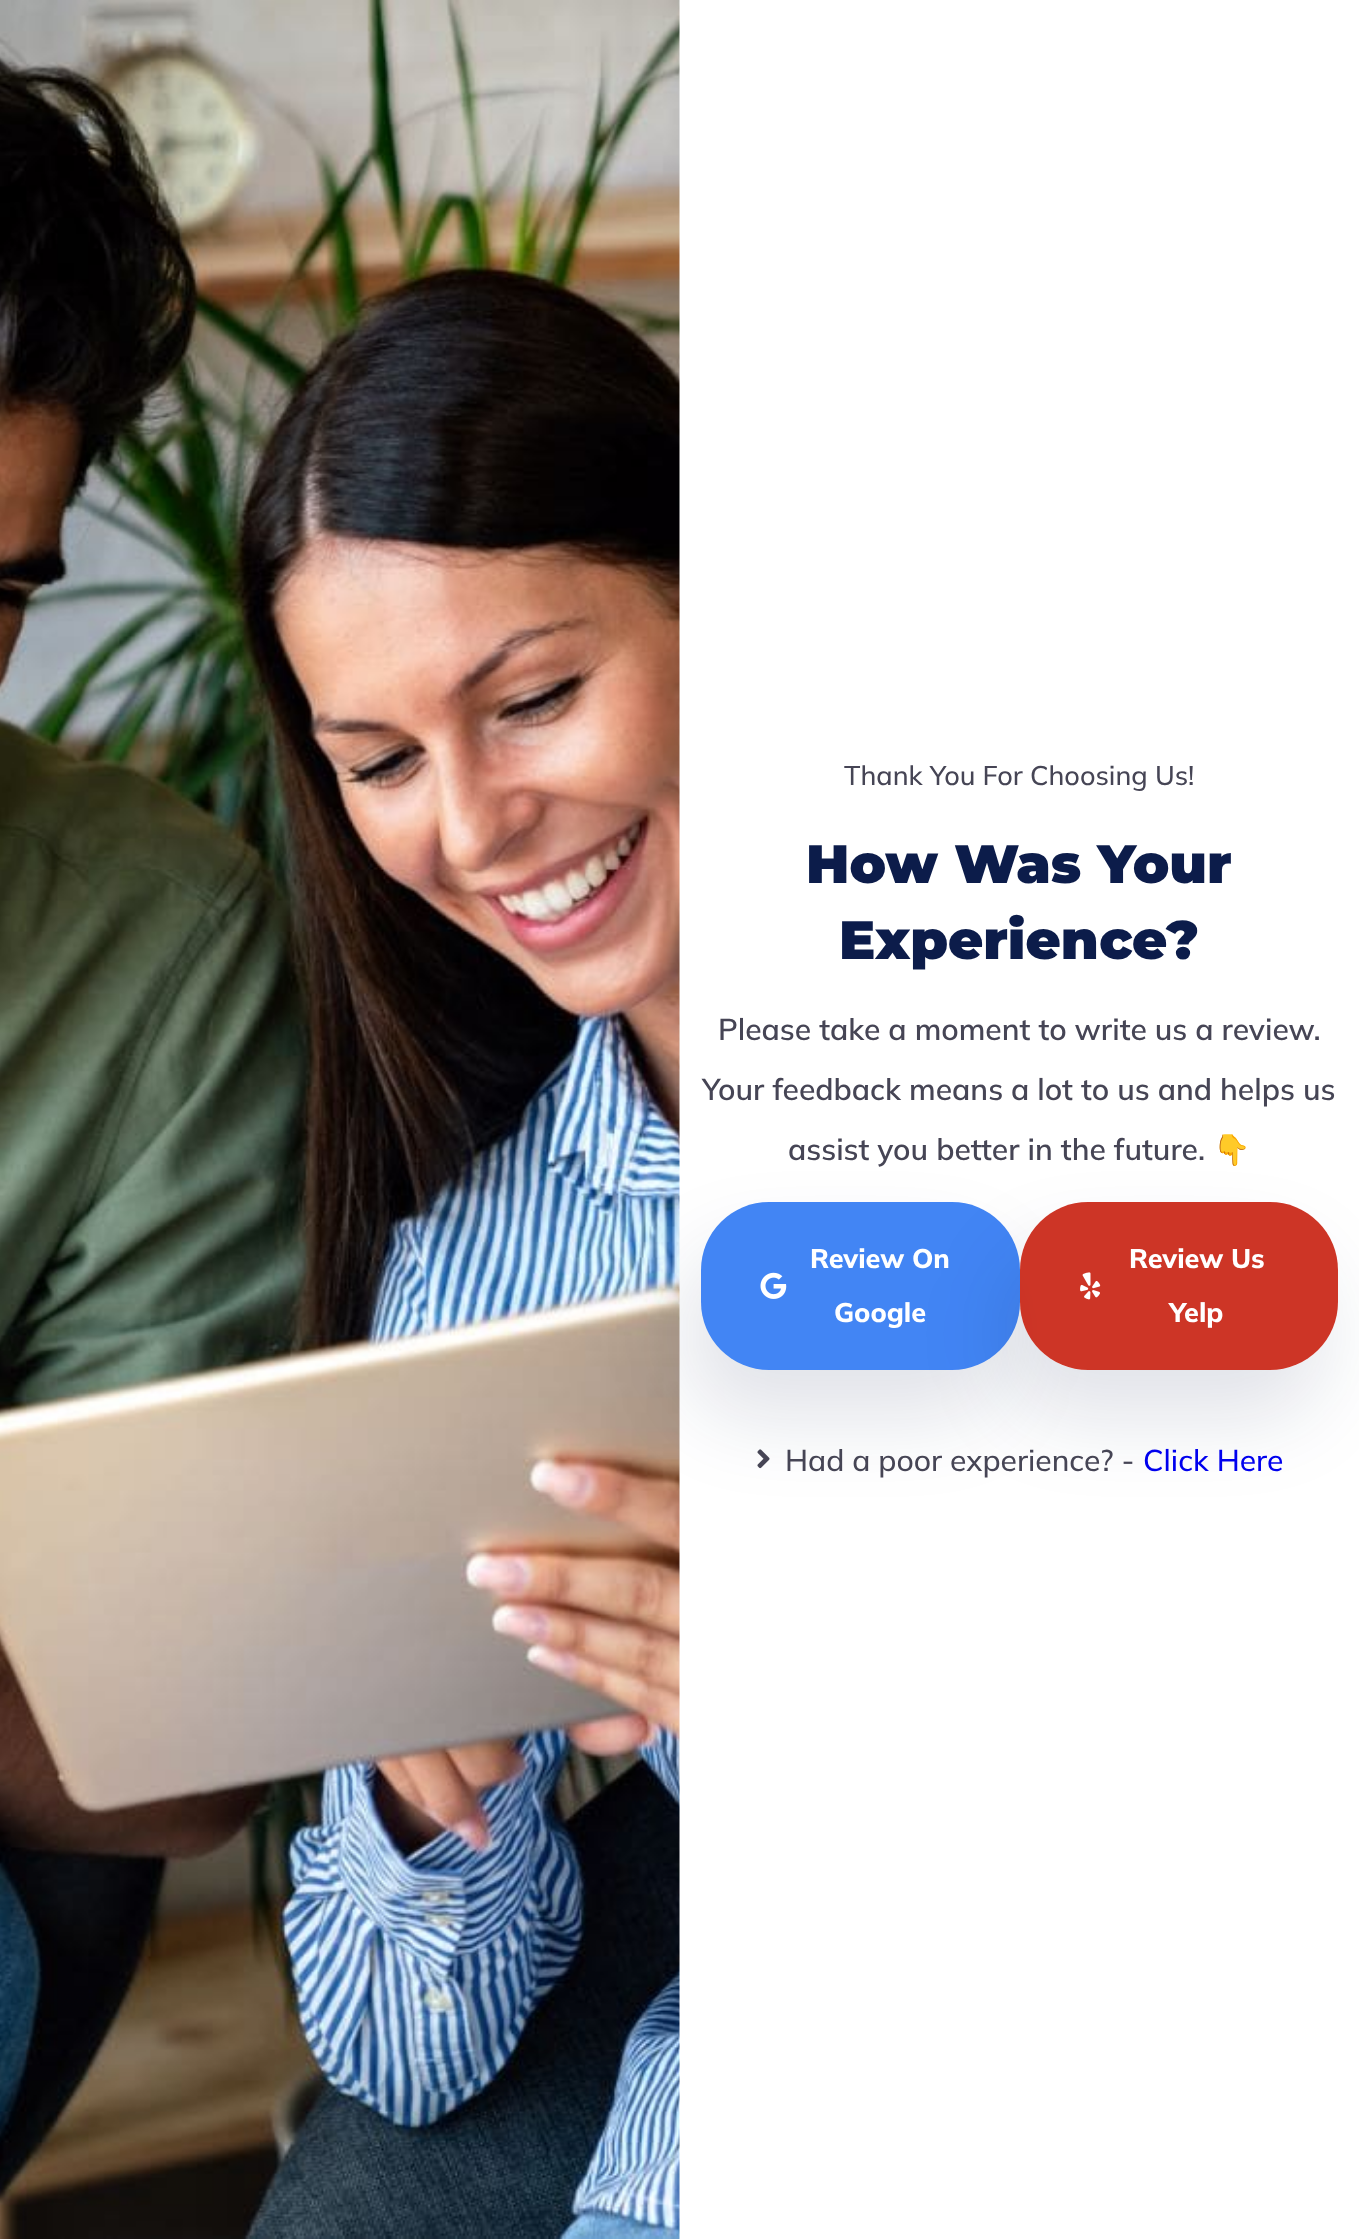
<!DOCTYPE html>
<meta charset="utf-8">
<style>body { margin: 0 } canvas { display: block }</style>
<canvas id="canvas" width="1359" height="2239"></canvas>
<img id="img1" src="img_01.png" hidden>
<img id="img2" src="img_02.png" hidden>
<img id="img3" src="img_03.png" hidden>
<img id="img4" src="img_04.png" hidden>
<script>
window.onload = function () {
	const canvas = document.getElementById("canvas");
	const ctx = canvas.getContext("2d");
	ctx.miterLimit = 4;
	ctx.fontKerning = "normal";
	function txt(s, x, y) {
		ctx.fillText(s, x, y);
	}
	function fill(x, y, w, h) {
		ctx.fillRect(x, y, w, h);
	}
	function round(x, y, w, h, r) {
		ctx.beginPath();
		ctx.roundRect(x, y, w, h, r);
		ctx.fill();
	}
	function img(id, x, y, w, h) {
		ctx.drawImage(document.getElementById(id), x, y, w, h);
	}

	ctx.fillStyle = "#FFFFFF";
	fill(0, 0, 1359, 2239);
	img("img1", 0, 0, 680, 2239);
	ctx.fillStyle = "rgba(12, 28, 74, 0.12)";
	ctx.filter = "blur(40.5px)";
	ctx.beginPath();
	ctx.roundRect(686, 1250, 319, 168, 68);
	ctx.fill();
	ctx.filter = "none";
	ctx.fillStyle = "#4285F4";
	round(701, 1202, 319, 168, 68);
	img("img2", 760, 1272, 27, 27);
	ctx.save();
	ctx.beginPath();
	ctx.moveTo(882, 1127);
	ctx.lineTo(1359, 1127);
	ctx.lineTo(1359, 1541);
	ctx.lineTo(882, 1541);
	ctx.closePath();
	ctx.moveTo(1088, 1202);
	ctx.lineTo(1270, 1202);
	ctx.bezierCurveTo(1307.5, 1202, 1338, 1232.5, 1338, 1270);
	ctx.lineTo(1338, 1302);
	ctx.bezierCurveTo(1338, 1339.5, 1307.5, 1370, 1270, 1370);
	ctx.lineTo(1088, 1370);
	ctx.bezierCurveTo(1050.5, 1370, 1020, 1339.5, 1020, 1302);
	ctx.lineTo(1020, 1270);
	ctx.bezierCurveTo(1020, 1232.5, 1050.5, 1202, 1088, 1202);
	ctx.closePath();
	ctx.clip("evenodd");
	ctx.fillStyle = "rgba(12, 28, 74, 0.12)";
	ctx.filter = "blur(40.5px)";
	ctx.beginPath();
	ctx.roundRect(1005, 1250, 318, 168, 68);
	ctx.fill();
	ctx.filter = "none";
	ctx.restore();
	ctx.fillStyle = "rgba(196, 18, 0, 0.85)";
	round(1020, 1202, 318, 168, 68);
	img("img3", 1080, 1272, 21, 28);
	img("img4", 757, 1449, 13, 20);
	ctx.font = "500 27px Mulish";
	ctx.fillStyle = "#464555";
	txt("Thank You For Choosing Us!", 844, 785);
	ctx.font = "900 54px Montserrat";
	ctx.fillStyle = "#0C1C4A";
	txt("How Was Your", 806, 883);
	txt("Experience?", 839, 959);
	ctx.font = "600 30px Mulish";
	ctx.fillStyle = "#464555";
	txt("Please take a moment to write us a review.", 718, 1040);
	txt("Your feedback means a lot to us and helps us", 702, 1100);
	txt("assist you better in the future.", 788, 1160);
	ctx.font = "bold 30px Noto Color Emoji";
	txt("👇", 1213, 1160);
	ctx.font = "800 27px Mulish";
	ctx.fillStyle = "#FFFFFF";
	txt("Review On", 810, 1268);
	txt("Google", 834, 1322);
	txt("Review Us", 1129, 1268);
	txt("Yelp", 1169, 1322);
	ctx.font = "500 30px Mulish";
	ctx.fillStyle = "#464555";
	txt("Had a poor experience? -", 785, 1471);
	ctx.fillStyle = "#0000EE";
	txt("Click Here", 1143, 1471);
};
</script>
